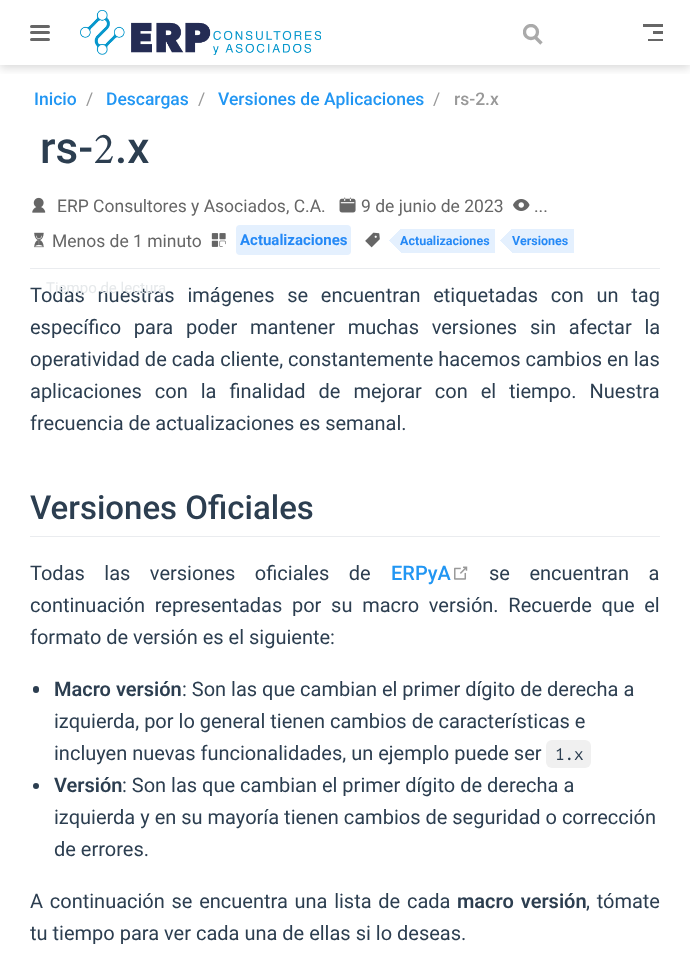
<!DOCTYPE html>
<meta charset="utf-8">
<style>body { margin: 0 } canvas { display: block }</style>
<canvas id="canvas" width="690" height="954"></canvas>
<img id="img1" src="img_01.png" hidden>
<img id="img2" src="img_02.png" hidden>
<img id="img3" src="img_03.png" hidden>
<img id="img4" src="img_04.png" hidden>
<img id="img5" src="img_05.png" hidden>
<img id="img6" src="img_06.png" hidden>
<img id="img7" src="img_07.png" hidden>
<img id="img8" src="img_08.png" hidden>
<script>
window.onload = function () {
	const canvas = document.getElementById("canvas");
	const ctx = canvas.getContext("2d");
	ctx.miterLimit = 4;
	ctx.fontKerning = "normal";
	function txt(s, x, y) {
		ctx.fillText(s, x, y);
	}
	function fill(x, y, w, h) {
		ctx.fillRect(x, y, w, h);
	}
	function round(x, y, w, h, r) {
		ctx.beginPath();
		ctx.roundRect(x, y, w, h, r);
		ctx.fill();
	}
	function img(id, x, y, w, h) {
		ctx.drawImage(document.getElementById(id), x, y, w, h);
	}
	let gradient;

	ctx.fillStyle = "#FFFFFF";
	fill(0, 0, 690, 954);
	ctx.save();
	ctx.beginPath();
	ctx.rect(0, 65, 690, 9);
	ctx.clip();
	ctx.fillStyle = "rgba(0, 0, 0, 0.15)";
	ctx.filter = "blur(5px)";
	ctx.beginPath();
	ctx.rect(0, 3, 690, 65);
	ctx.fill();
	ctx.filter = "none";
	ctx.restore();
	ctx.fillStyle = "#666666";
	round(30, 25, 20, 3, 1.5);
	round(30, 31, 20, 3, 1.5);
	round(30, 38, 20, 3, 1.5);
	img("img1", 80, 10, 241, 45);
	ctx.beginPath();
	ctx.moveTo(541.5, 43.5);
	ctx.lineTo(534.5, 36.5);
	ctx.strokeStyle = "#AAAAAA";
	ctx.lineWidth = 3.3;
	ctx.stroke();
	ctx.save();
	ctx.beginPath();
	ctx.rect(523, 24, 20, 21);
	ctx.clip();
	ctx.beginPath();
	ctx.arc(531, 32, 6.5, 0, Math.PI * 2);
	ctx.stroke();
	ctx.restore();
	fill(643, 24, 20, 3);
	fill(653, 31, 10, 3);
	fill(648, 39, 15, 2);
	img("img2", 32, 197, 14, 16);
	img("img3", 339, 197, 17, 16);
	img("img4", 513, 199, 17, 12);
	img("img5", 34, 232, 10, 16);
	img("img6", 211, 233, 15, 14);
	ctx.fillStyle = "#E4F0FE";
	round(236, 225, 115, 30, 4);
	img("img7", 365, 232, 15, 16);
	gradient = ctx.createLinearGradient(411, 276, 471, 216);
	gradient.addColorStop(0.11, "#FFFFFF");
	gradient.addColorStop(0.11, "#E4F0FE");
	ctx.fillStyle = gradient;
	fill(389, 240, 106, 13);
	gradient = ctx.createLinearGradient(411, 205, 471, 265);
	gradient.addColorStop(0.11, "rgba(228, 240, 254, 0)");
	gradient.addColorStop(0.11, "#E4F0FE");
	ctx.fillStyle = gradient;
	fill(390, 229, 105, 11);
	gradient = ctx.createLinearGradient(515, 268, 558, 225);
	gradient.addColorStop(0.15, "#FFFFFF");
	gradient.addColorStop(0.15, "#E4F0FE");
	ctx.fillStyle = gradient;
	fill(501, 241, 73, 12);
	gradient = ctx.createLinearGradient(515, 213, 558, 256);
	gradient.addColorStop(0.15, "rgba(228, 240, 254, 0)");
	gradient.addColorStop(0.15, "#E4F0FE");
	ctx.fillStyle = gradient;
	fill(500, 229, 74, 12);
	ctx.fillStyle = "#EAECEF";
	fill(30, 268, 630, 1);
	fill(30, 536, 630, 1);
	img("img8", 454, 566, 14, 14);
	ctx.fillStyle = "#2C3E50";
	round(33, 686, 6, 7, 3);
	ctx.fillStyle = "#F0F0F0";
	round(546, 740, 45, 28, 6);
	ctx.fillStyle = "#2C3E50";
	ctx.beginPath();
	ctx.arc(36, 786, 3, 0, Math.PI * 2);
	ctx.fill();
	ctx.font = "500 17.5px Roboto";
	ctx.fillStyle = "#2196F3";
	txt("Inicio", 34, 105);
	ctx.font = "17.5px Roboto";
	ctx.fillStyle = "#999999";
	txt("/", 86, 105);
	ctx.font = "500 17.5px Roboto";
	ctx.fillStyle = "#2196F3";
	txt("Descargas", 106, 105);
	ctx.font = "17.5px Roboto";
	ctx.fillStyle = "#999999";
	txt("/", 198, 105);
	ctx.font = "500 17.5px Roboto";
	ctx.fillStyle = "#2196F3";
	txt("Versiones de Aplicaciones", 218, 105);
	ctx.font = "17.5px Roboto";
	ctx.fillStyle = "#999999";
	txt("/", 433, 105);
	ctx.font = "500 17.5px Roboto";
	txt("rs-2.x", 454, 105);
	ctx.font = "500 44px Roboto";
	ctx.fillStyle = "#2C3E50";
	txt("rs-", 40, 163);
	ctx.font = "44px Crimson";
	txt("2", 93, 163);
	ctx.font = "500 44px Roboto";
	txt(".x", 115, 163);
	ctx.font = "17.5px Roboto";
	ctx.fillStyle = "#666666";
	txt("ERP Consultores y Asociados, C.A.", 57, 212);
	txt("9 de junio de 2023", 361, 212);
	txt("...", 534, 212);
	txt("Menos de 1 minuto", 52, 247);
	ctx.font = "bold 15px Roboto";
	ctx.fillStyle = "#2589F6";
	txt("Actualizaciones", 240, 245);
	ctx.font = "bold 12.5px Roboto";
	txt("Actualizaciones", 400, 245);
	txt("Versiones", 512, 245);
	ctx.wordSpacing = "7.75px";
	ctx.font = "20px Roboto";
	ctx.fillStyle = "#2C3E50";
	txt("Todas nuestras imágenes se encuentran etiquetadas con un tag", 30, 302);
	ctx.wordSpacing = "0px";
	ctx.font = "15px Roboto";
	ctx.fillStyle = "#E6E9EB";
	txt("Tiempo de lectura", 46, 293);
	ctx.wordSpacing = "7.75px";
	ctx.font = "20px Roboto";
	ctx.fillStyle = "#2C3E50";
	txt("específico para poder mantener muchas versiones sin afectar la", 30, 334);
	ctx.wordSpacing = "0px";
	txt("operatividad de cada cliente, constantemente hacemos cambios en las", 30, 366);
	ctx.wordSpacing = "8px";
	txt("aplicaciones con la finalidad de mejorar con el tiempo. Nuestra", 30, 398);
	ctx.wordSpacing = "0px";
	txt("frecuencia de actualizaciones es semanal.", 30, 430);
	ctx.font = "500 33px Roboto";
	txt("Versiones Oficiales", 30, 519);
	ctx.wordSpacing = "14.5px";
	ctx.font = "20px Roboto";
	txt("Todas las versiones oficiales de", 30, 580);
	ctx.wordSpacing = "0px";
	ctx.font = "500 20px Roboto";
	ctx.fillStyle = "#2196F3";
	txt("ERPyA", 391, 580);
	ctx.wordSpacing = "14.5px";
	ctx.font = "20px Roboto";
	ctx.fillStyle = "#2C3E50";
	txt("se encuentran a", 489, 580);
	ctx.wordSpacing = "4.75px";
	txt("continuación representadas por su macro versión. Recuerde que el", 30, 612);
	ctx.wordSpacing = "0px";
	txt("formato de versión es el siguiente:", 30, 644);
	ctx.font = "600 20px Roboto";
	txt("Macro versión", 54, 696);
	ctx.font = "20px Roboto";
	txt(": Son las que cambian el primer dígito de derecha a", 182, 696);
	txt("izquierda, por lo general tienen cambios de características e", 54, 728);
	txt("incluyen nuevas funcionalidades, un ejemplo puede ser", 54, 760);
	ctx.font = "17px Ubuntu Mono";
	txt("1.x", 555, 760);
	ctx.font = "600 20px Roboto";
	txt("Versión", 54, 792);
	ctx.font = "20px Roboto";
	txt(": Son las que cambian el primer dígito de derecha a", 122, 792);
	txt("izquierda y en su mayoría tienen cambios de seguridad o corrección", 54, 824);
	txt("de errores.", 54, 856);
	ctx.wordSpacing = "1.75px";
	txt("A continuación se encuentra una lista de cada", 30, 908);
	ctx.wordSpacing = "2px";
	ctx.font = "600 20px Roboto";
	txt("macro versión", 457, 908);
	ctx.wordSpacing = "1.75px";
	ctx.font = "20px Roboto";
	txt(", tómate", 586, 908);
	ctx.wordSpacing = "0px";
	txt("tu tiempo para ver cada una de ellas si lo deseas.", 30, 940);
};
</script>
